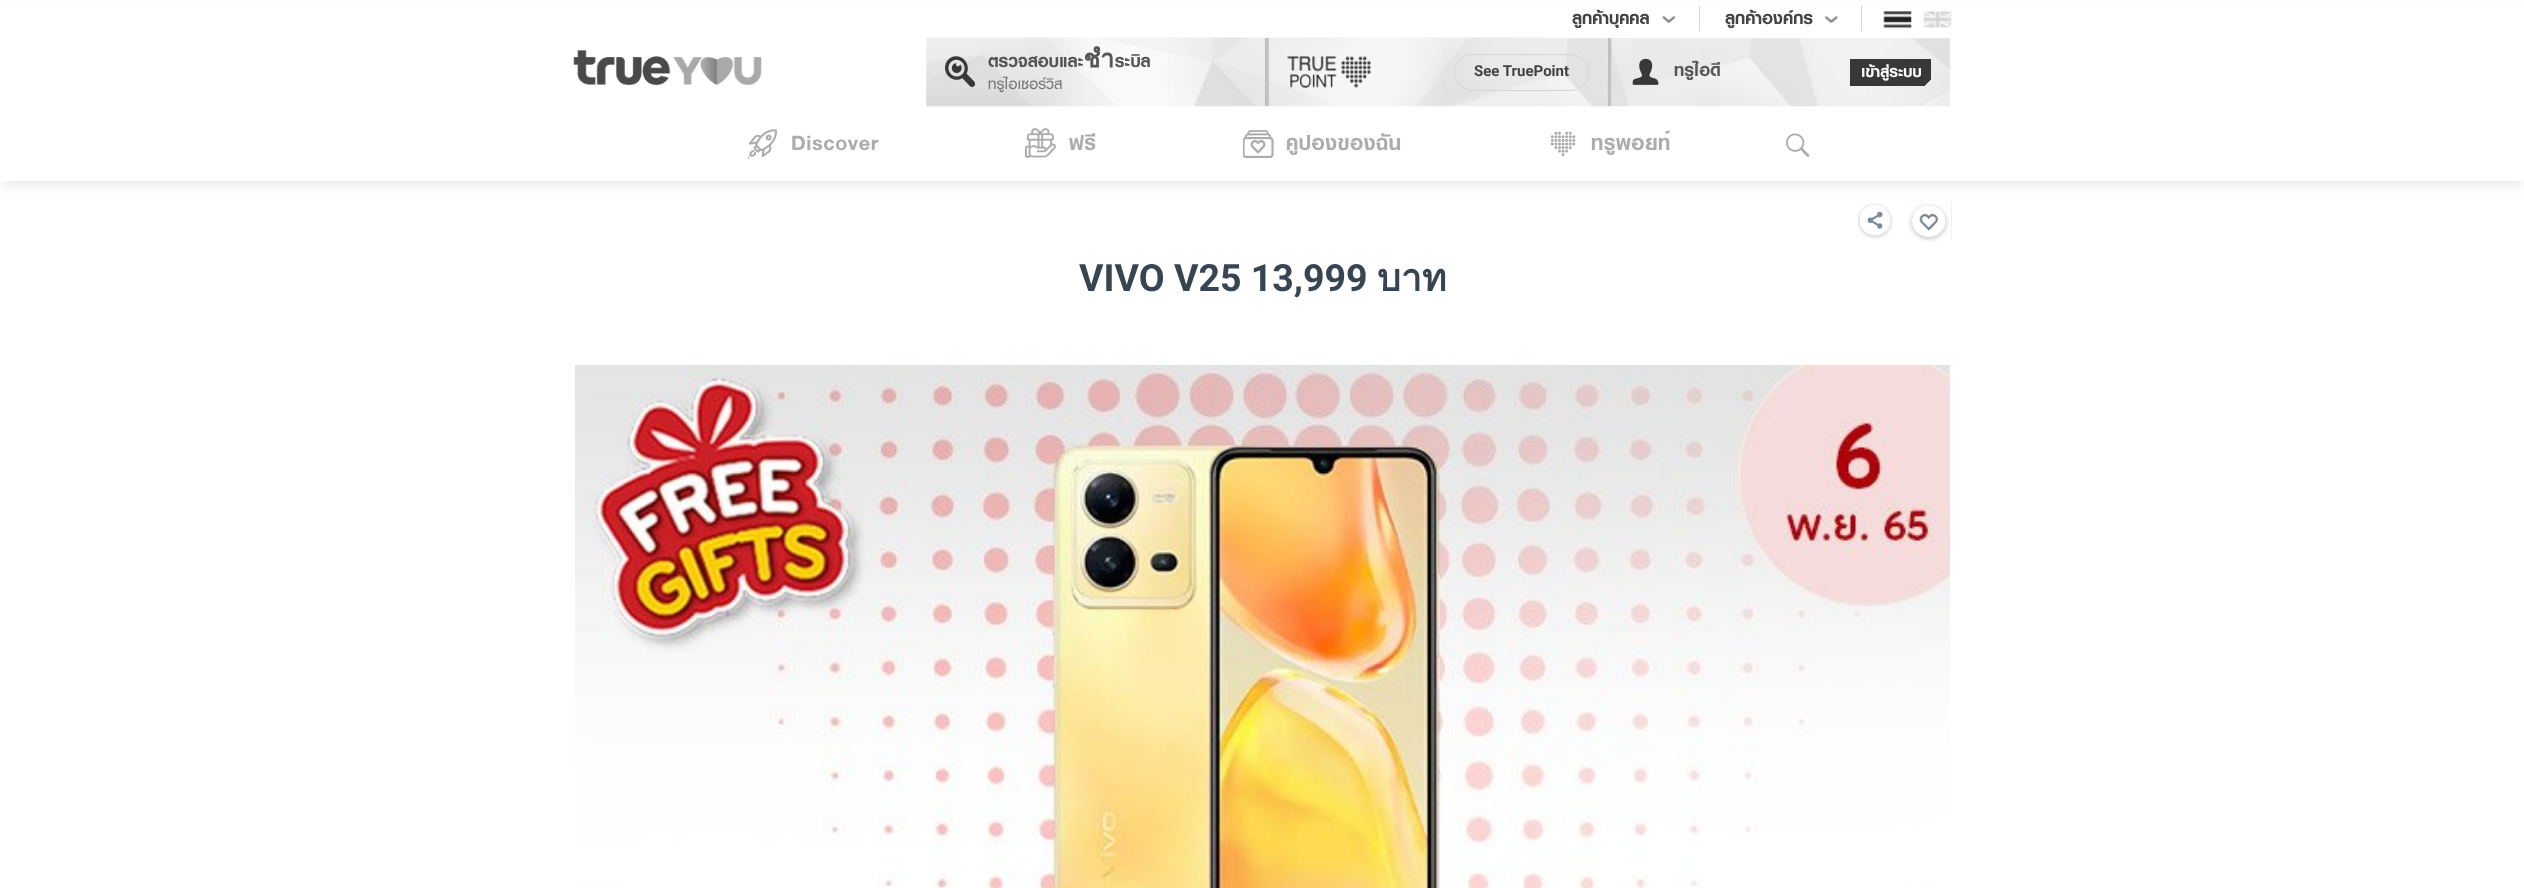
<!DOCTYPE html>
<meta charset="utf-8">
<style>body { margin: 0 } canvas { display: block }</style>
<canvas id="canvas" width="2524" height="888"></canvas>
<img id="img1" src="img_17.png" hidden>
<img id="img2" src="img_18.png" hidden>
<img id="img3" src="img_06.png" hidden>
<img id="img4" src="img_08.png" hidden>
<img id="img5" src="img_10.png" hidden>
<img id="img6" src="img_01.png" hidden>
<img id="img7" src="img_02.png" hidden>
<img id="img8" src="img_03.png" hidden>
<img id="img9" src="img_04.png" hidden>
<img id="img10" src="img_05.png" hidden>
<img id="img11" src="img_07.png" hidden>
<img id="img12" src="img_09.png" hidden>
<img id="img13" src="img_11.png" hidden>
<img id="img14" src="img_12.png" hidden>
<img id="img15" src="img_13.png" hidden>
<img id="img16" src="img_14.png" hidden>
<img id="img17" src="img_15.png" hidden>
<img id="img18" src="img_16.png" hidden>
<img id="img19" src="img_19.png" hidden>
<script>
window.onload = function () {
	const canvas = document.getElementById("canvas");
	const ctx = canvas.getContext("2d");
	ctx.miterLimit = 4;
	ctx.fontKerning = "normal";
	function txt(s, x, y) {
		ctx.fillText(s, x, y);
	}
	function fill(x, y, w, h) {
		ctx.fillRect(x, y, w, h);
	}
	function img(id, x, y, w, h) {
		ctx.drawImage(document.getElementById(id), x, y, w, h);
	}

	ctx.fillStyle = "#FFFFFF";
	fill(0, 0, 2524, 888);
	img("img1", 1857, 203, 36, 36);
	img("img2", 1906, 201, 46, 41);
	ctx.fillStyle = "rgba(67, 67, 67, 0.12)";
	ctx.filter = "blur(6px)";
	ctx.beginPath();
	ctx.rect(3, 9, 2520, 176);
	ctx.fill();
	ctx.filter = "none";
	ctx.fillStyle = "#FFFFFF";
	fill(0, 2, 2524, 179);
	img("img3", 926, 37, 344, 70);
	ctx.fillStyle = "#C0C0C0";
	fill(1265, 38, 4, 68);
	img("img4", 1268, 37, 344, 70);
	fill(1608, 38, 4, 68);
	img("img5", 1611, 37, 340, 70);
	ctx.fillStyle = "#FFFFFF";
	fill(1548, 37, 402, 1);
	img("img6", 1662, 16, 14, 8);
	ctx.fillStyle = "#D6D6D6";
	fill(1699, 6, 1, 25);
	img("img7", 1824, 16, 15, 8);
	fill(1861, 6, 1, 25);
	img("img8", 1883, 11, 29, 18);
	img("img9", 1923, 11, 29, 17);
	img("img10", 573, 50, 189, 35);
	img("img11", 945, 56, 30, 31);
	img("img12", 1287, 56, 85, 32);
	ctx.beginPath();
	ctx.roundRect(1454.5, 54.5, 134, 36, 18);
	ctx.strokeStyle = "#D5D5D5";
	ctx.stroke();
	img("img13", 1632, 58, 27, 27);
	img("img14", 748, 129, 29, 30);
	img("img15", 1025, 128, 31, 30);
	img("img16", 1243, 130, 31, 29);
	img("img17", 1550, 131, 26, 26);
	img("img18", 1786, 133, 24, 24);
	img("img19", 575, 365, 1375, 523);
	ctx.font = "bold 25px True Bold";
	ctx.fillStyle = "#434343";
	txt("ลูกค้าบุคคล", 1572, 24);
	txt("ลูกค้าองค์กร", 1725, 24);
	ctx.fillStyle = "#555555";
	txt("ตรวจสอบและชำระบิล", 988, 67);
	ctx.font = "500 21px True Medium";
	ctx.fillStyle = "#777777";
	txt("ทรูไอเซอร์วิส", 988, 89);
	ctx.font = "bold 15px Roboto";
	ctx.fillStyle = "#434343";
	txt("See TruePoint", 1474, 76);
	ctx.font = "bold 25px True Bold";
	ctx.fillStyle = "#555555";
	txt("ทรูไอดี", 1674, 76);
	ctx.font = "bold 22.5px True Bold";
	ctx.fillStyle = "#FFFFFF";
	txt("เข้าสู่ระบบ", 1861, 77);
	ctx.letterSpacing = "0.6px";
	ctx.font = "bold 30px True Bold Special";
	ctx.fillStyle = "#ACACAC";
	txt("Discover", 791, 150);
	txt("ฟรี", 1069, 150);
	txt("คูปองของฉัน", 1286, 150);
	txt("ทรูพอยท์", 1591, 150);
	ctx.letterSpacing = "0px";
	ctx.font = "bold 37.5px Roboto";
	ctx.fillStyle = "#374552";
	txt("VIVO V25 13,999", 1079, 291);
	ctx.font = "bold 37.5px Loma";
	txt("บาท", 1377, 291);
};
</script>
